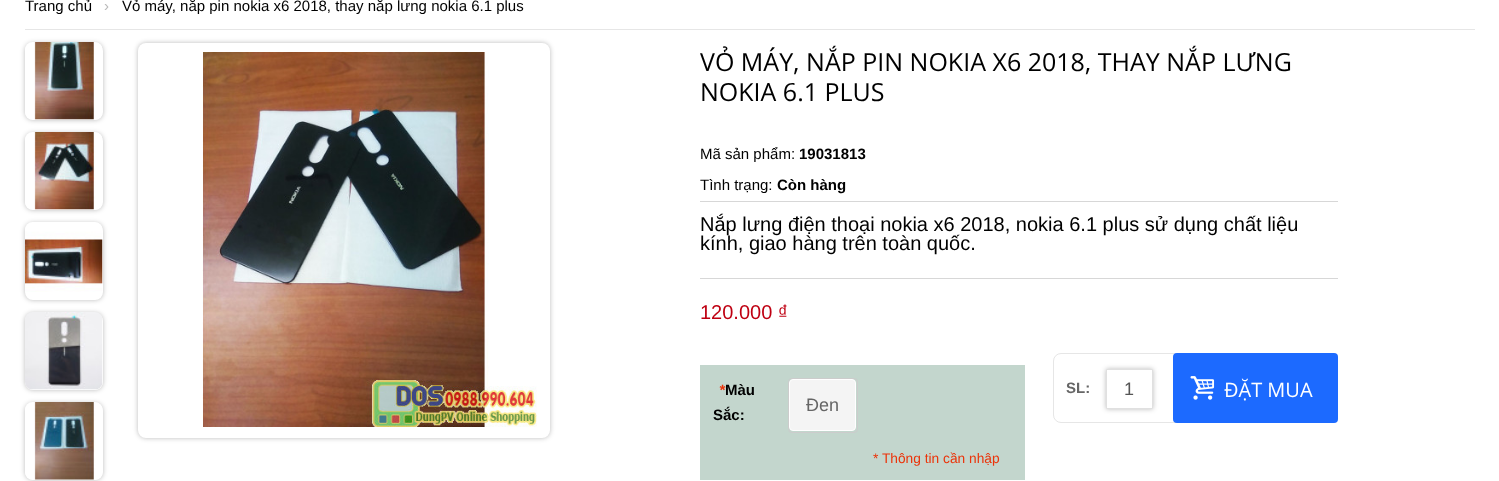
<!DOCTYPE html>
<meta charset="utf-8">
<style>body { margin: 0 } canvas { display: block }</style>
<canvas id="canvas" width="1499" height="481"></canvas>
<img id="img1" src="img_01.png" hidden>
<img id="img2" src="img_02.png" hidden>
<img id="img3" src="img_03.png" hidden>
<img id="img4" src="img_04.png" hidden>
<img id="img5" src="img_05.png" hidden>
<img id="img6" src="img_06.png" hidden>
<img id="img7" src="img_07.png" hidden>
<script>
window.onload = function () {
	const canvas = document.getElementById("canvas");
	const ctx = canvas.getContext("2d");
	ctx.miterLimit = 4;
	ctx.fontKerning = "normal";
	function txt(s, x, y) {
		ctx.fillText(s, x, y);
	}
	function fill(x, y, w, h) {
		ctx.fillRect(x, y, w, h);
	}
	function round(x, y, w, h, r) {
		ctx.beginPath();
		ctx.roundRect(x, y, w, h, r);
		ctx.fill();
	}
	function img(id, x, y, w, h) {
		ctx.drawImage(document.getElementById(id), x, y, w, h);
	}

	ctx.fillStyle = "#FFFFFF";
	fill(0, 0, 1499, 481);
	ctx.fillStyle = "#E6E6E6";
	fill(25, 29, 1450, 1);
	ctx.fillStyle = "rgba(0, 0, 0, 0.27)";
	ctx.filter = "blur(2.5px)";
	ctx.beginPath();
	ctx.roundRect(25, 43, 78, 77, 8);
	ctx.fill();
	ctx.filter = "none";
	ctx.fillStyle = "#FFFFFF";
	round(25, 43, 78, 77, 8);
	img("img1", 25, 42, 77, 78);
	ctx.fillStyle = "rgba(0, 0, 0, 0.27)";
	ctx.filter = "blur(2.5px)";
	ctx.beginPath();
	ctx.roundRect(25, 133, 78, 77, 8);
	ctx.fill();
	ctx.filter = "none";
	ctx.fillStyle = "#FFFFFF";
	round(25, 133, 78, 77, 8);
	img("img2", 25, 132, 77, 78);
	ctx.fillStyle = "rgba(0, 0, 0, 0.27)";
	ctx.filter = "blur(2.5px)";
	ctx.beginPath();
	ctx.roundRect(25, 223, 78, 77, 8);
	ctx.fill();
	ctx.filter = "none";
	ctx.fillStyle = "#FFFFFF";
	round(25, 223, 78, 77, 8);
	img("img3", 25, 222, 78, 70);
	ctx.fillStyle = "rgba(0, 0, 0, 0.27)";
	ctx.filter = "blur(2.5px)";
	ctx.beginPath();
	ctx.roundRect(25, 313, 78, 77, 8);
	ctx.fill();
	ctx.filter = "none";
	ctx.fillStyle = "#FFFFFF";
	round(25, 313, 78, 77, 8);
	img("img4", 25, 312, 78, 78);
	ctx.fillStyle = "rgba(0, 0, 0, 0.27)";
	ctx.filter = "blur(2.5px)";
	ctx.beginPath();
	ctx.roundRect(25, 403, 78, 77, 8);
	ctx.fill();
	ctx.filter = "none";
	ctx.fillStyle = "#FFFFFF";
	round(25, 403, 78, 77, 8);
	img("img5", 25, 402, 78, 78);
	ctx.fillStyle = "rgba(0, 0, 0, 0.27)";
	ctx.filter = "blur(2.5px)";
	ctx.beginPath();
	ctx.roundRect(138, 43, 412, 395, 8);
	ctx.fill();
	ctx.filter = "none";
	ctx.fillStyle = "#FFFFFF";
	round(138, 43, 412, 395, 8);
	img("img6", 202, 52, 335, 375);
	ctx.fillStyle = "#D7D7D7";
	fill(700, 201, 638, 1);
	fill(700, 278, 638, 1);
	ctx.fillStyle = "#C3D6CD";
	fill(700, 365, 325, 115);
	ctx.beginPath();
	ctx.roundRect(788.5, 378.5, 69, 54, 3.5);
	ctx.strokeStyle = "#CCCCCC";
	ctx.stroke();
	ctx.fillStyle = "#F4F4F4";
	ctx.beginPath();
	ctx.roundRect(789.5, 379.5, 66, 51, 3.5);
	ctx.fill();
	ctx.strokeStyle = "#FFFFFF";
	ctx.stroke();
	ctx.beginPath();
	ctx.roundRect(1053.5, 353.5, 131, 69, 7.5);
	ctx.strokeStyle = "#E6E6E6";
	ctx.stroke();
	ctx.fillStyle = "rgba(0, 0, 0, 0.27)";
	ctx.filter = "blur(2.5px)";
	ctx.beginPath();
	ctx.rect(1106, 369, 47, 40);
	ctx.fill();
	ctx.filter = "none";
	ctx.fillStyle = "#FFFFFF";
	ctx.beginPath();
	ctx.rect(1106.5, 369.5, 46, 39);
	ctx.fill();
	ctx.strokeStyle = "#E0E0E0";
	ctx.stroke();
	ctx.fillStyle = "#1C6AFF";
	round(1173, 353, 165, 70, 4);
	img("img7", 1190, 376, 25, 24);
	ctx.font = "15px Liberation Sans";
	ctx.fillStyle = "#000000";
	txt("Trang chủ", 25, 11);
	ctx.fillStyle = "#BABABA";
	txt("›", 104, 11);
	ctx.fillStyle = "#000000";
	txt("Vỏ máy, nắp pin nokia x6 2018, thay nắp lưng nokia 6.1 plus", 122, 11);
	ctx.font = "25px Open Sans";
	txt("VỎ MÁY, NẮP PIN NOKIA X6 2018, THAY NẮP LƯNG", 700, 71);
	txt("NOKIA 6.1 PLUS", 700, 101);
	ctx.font = "15px Liberation Sans";
	txt("Mã sản phẩm:", 700, 159);
	ctx.font = "bold 15px Liberation Sans";
	txt("19031813", 799, 159);
	ctx.font = "15px Liberation Sans";
	txt("Tình trạng:", 700, 190);
	ctx.font = "bold 15px Liberation Sans";
	txt("Còn hàng", 777, 190);
	ctx.font = "20px Liberation Sans";
	txt("Nắp lưng điện thoại nokia x6 2018, nokia 6.1 plus sử dụng chất liệu", 700, 231);
	txt("kính, giao hàng trên toàn quốc.", 700, 250);
	ctx.fillStyle = "#BF0012";
	txt("120.000 ₫", 700, 319);
	ctx.font = "italic bold 15px Liberation Sans";
	ctx.fillStyle = "#EB340A";
	txt("*", 719, 395);
	ctx.font = "bold 15px Liberation Sans";
	ctx.fillStyle = "#000000";
	txt("Màu", 725, 395);
	txt("Sắc:", 713, 420);
	ctx.font = "18px Liberation Sans";
	ctx.fillStyle = "#666666";
	txt("Đen", 806, 411);
	ctx.font = "13.75px Liberation Sans";
	ctx.fillStyle = "#EB340A";
	txt("* Thông tin cần nhập", 873, 463);
	ctx.font = "bold 15px Liberation Sans";
	ctx.fillStyle = "#666666";
	txt("SL:", 1066, 393);
	ctx.font = "18px Liberation Sans";
	ctx.fillStyle = "#555555";
	txt("1", 1124, 395);
	ctx.font = "20px Open Sans";
	ctx.fillStyle = "#FFFFFF";
	txt("ĐẶT MUA", 1224, 397);
};
</script>
